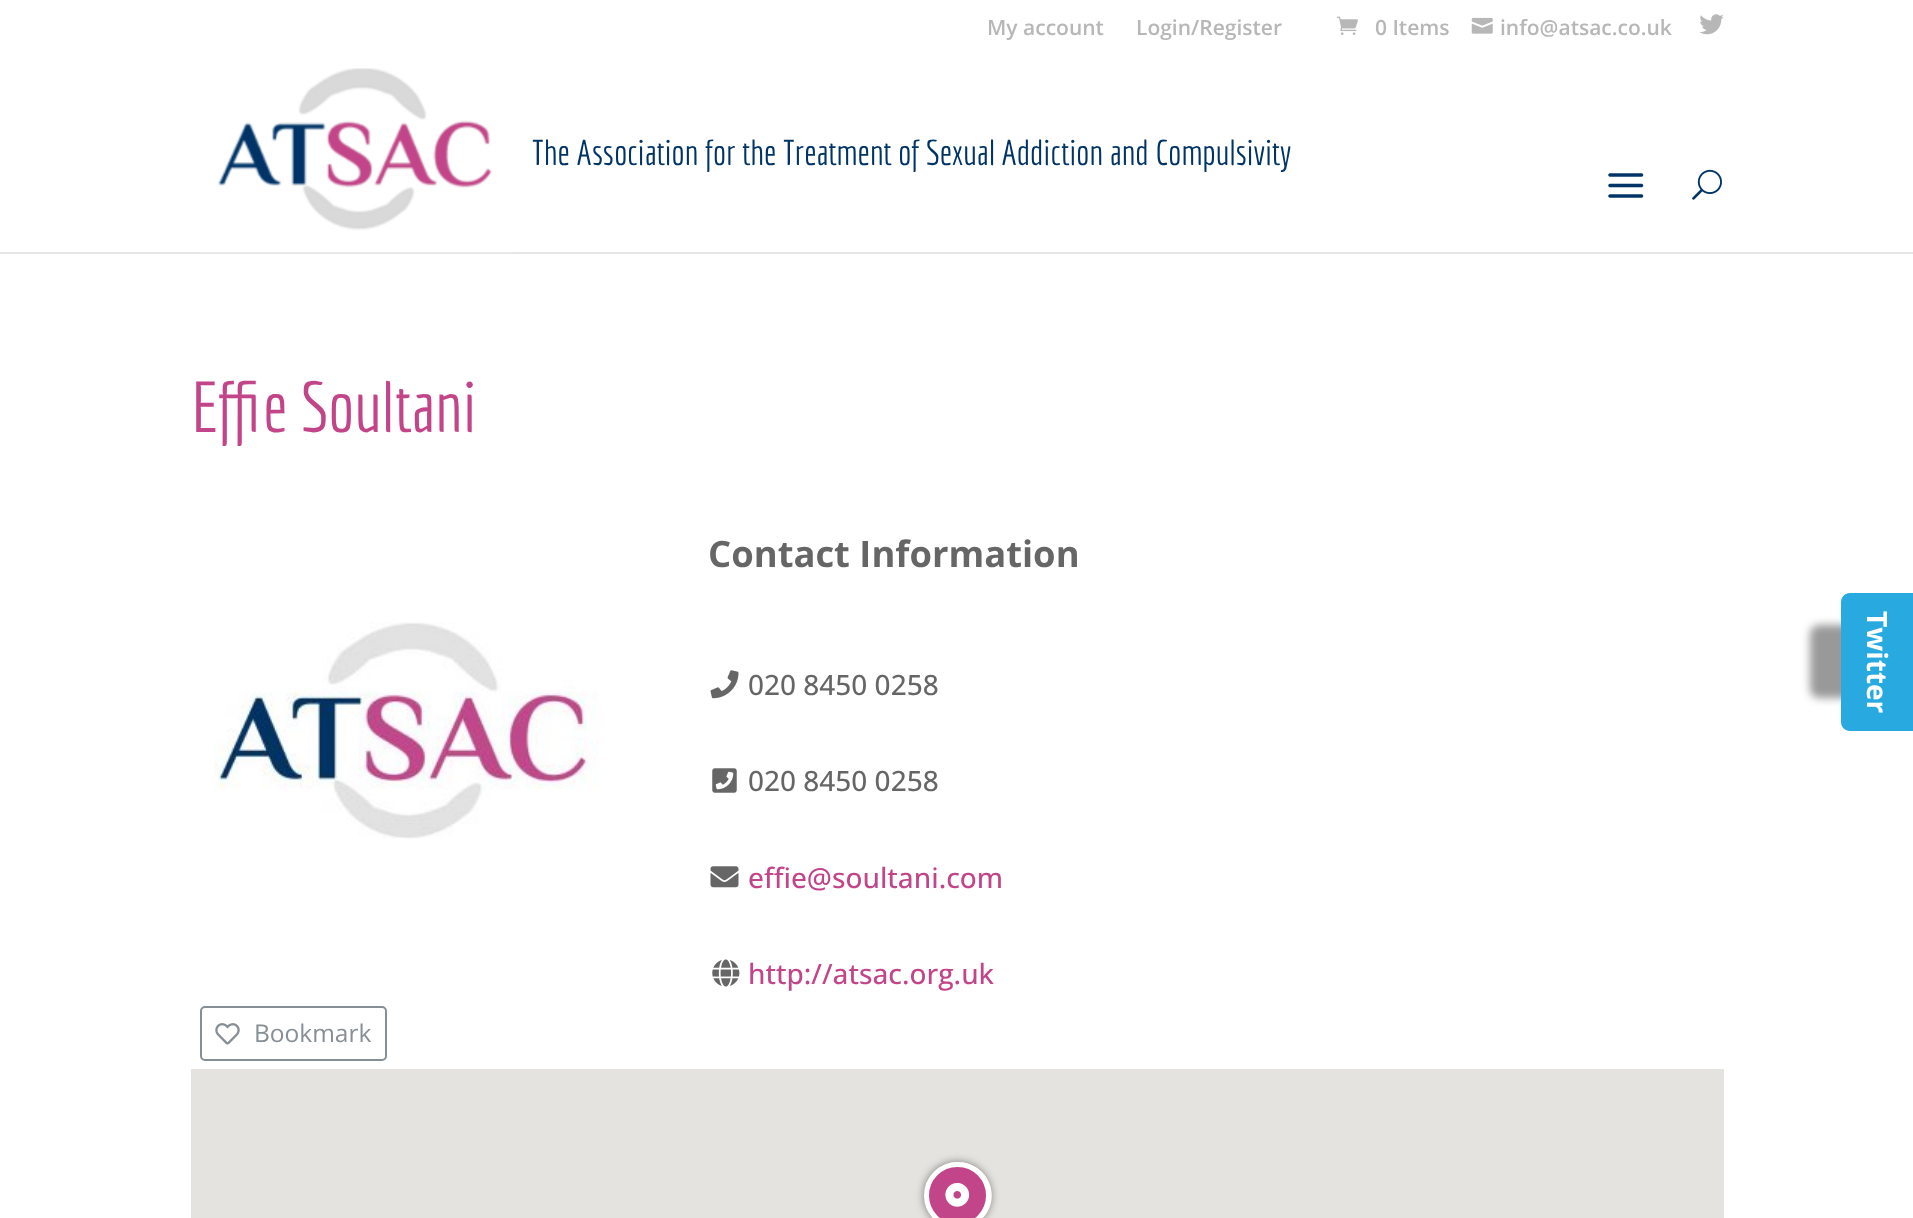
<!DOCTYPE html>
<meta charset="utf-8">
<style>body { margin: 0 } canvas { display: block }</style>
<canvas id="canvas" width="1913" height="1218"></canvas>
<img id="img1" src="img_01.png" hidden>
<img id="img2" src="img_02.png" hidden>
<img id="img3" src="img_03.png" hidden>
<img id="img4" src="img_04.png" hidden>
<img id="img5" src="img_05.png" hidden>
<img id="img6" src="img_06.png" hidden>
<img id="img7" src="img_07.png" hidden>
<img id="img8" src="img_08.png" hidden>
<img id="img9" src="img_09.png" hidden>
<img id="img10" src="img_10.png" hidden>
<img id="img11" src="img_11.png" hidden>
<img id="img12" src="img_12.png" hidden>
<img id="img13" src="img_13.png" hidden>
<script>
window.onload = function () {
	const canvas = document.getElementById("canvas");
	const ctx = canvas.getContext("2d");
	ctx.miterLimit = 4;
	ctx.fontKerning = "normal";
	function txt(s, x, y) {
		ctx.fillText(s, x, y);
	}
	function fill(x, y, w, h) {
		ctx.fillRect(x, y, w, h);
	}
	function img(id, x, y, w, h) {
		ctx.drawImage(document.getElementById(id), x, y, w, h);
	}

	ctx.fillStyle = "#FFFFFF";
	fill(0, 0, 1913, 1218);
	img("img1", 1337, 16, 21, 19);
	img("img2", 1471, 17, 22, 17);
	img("img3", 1699, 14, 25, 21);
	ctx.fillStyle = "#E6E6E6";
	ctx.beginPath();
	ctx.moveTo(0, 252);
	ctx.lineTo(0, 254);
	ctx.lineTo(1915, 254);
	ctx.lineTo(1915, 56);
	ctx.lineTo(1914, 56);
	ctx.lineTo(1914, 252);
	ctx.closePath();
	ctx.fill();
	img("img4", 200, 68, 314, 185);
	img("img5", 1608, 173, 36, 25);
	img("img6", 1692, 169, 30, 31);
	img("img7", 710, 670, 29, 29);
	img("img8", 712, 768, 25, 25);
	img("img9", 710, 866, 29, 22);
	img("img10", 712, 959, 28, 28);
	img("img11", 214, 622, 385, 217);
	ctx.beginPath();
	ctx.roundRect(201, 1007, 185, 53, 4);
	ctx.strokeStyle = "#868E96";
	ctx.lineWidth = 2;
	ctx.stroke();
	img("img12", 215, 1023, 25, 22);
	ctx.fillStyle = "#E5E3DF";
	fill(191, 1069, 1533, 149);
	ctx.fillStyle = "rgba(0, 0, 0, 0.47)";
	ctx.filter = "blur(4.5px)";
	ctx.beginPath();
	ctx.roundRect(924, 1162, 67, 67, 33.5);
	ctx.fill();
	ctx.filter = "none";
	ctx.fillStyle = "#FFFFFF";
	ctx.beginPath();
	ctx.moveTo(935, 1172);
	ctx.bezierCurveTo(947, 1159, 969, 1159, 982, 1172);
	ctx.bezierCurveTo(995, 1185, 995, 1206, 982, 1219);
	ctx.lineTo(958, 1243);
	ctx.lineTo(935, 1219);
	ctx.bezierCurveTo(922, 1206, 922, 1185, 935, 1172);
	ctx.closePath();
	ctx.fill();
	ctx.fillStyle = "#C34589";
	ctx.beginPath();
	ctx.arc(957.5, 1195.5, 31, 0, Math.PI * 2);
	ctx.fill();
	ctx.strokeStyle = "#FFFFFF";
	ctx.lineWidth = 5;
	ctx.stroke();
	img("img13", 945, 1182, 25, 25);
	ctx.fillStyle = "rgba(0, 0, 0, 0.4)";
	ctx.filter = "blur(4.5px)";
	ctx.beginPath();
	ctx.roundRect(1810, 625, 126, 73, 9);
	ctx.fill();
	ctx.filter = "none";
	ctx.fillStyle = "#28AAE1";
	ctx.beginPath();
	ctx.moveTo(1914, 593);
	ctx.lineTo(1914, 731);
	ctx.lineTo(1850, 731);
	ctx.bezierCurveTo(1845, 731, 1841, 727, 1841, 722);
	ctx.lineTo(1841, 602);
	ctx.bezierCurveTo(1841, 597, 1845, 593, 1850, 593);
	ctx.closePath();
	ctx.fill();
	ctx.font = "600 21px Open Sans";
	ctx.fillStyle = "#B7B7B7";
	txt("My account", 987, 35);
	txt("Login/Register", 1136, 35);
	txt("0 Items", 1375, 35);
	txt("info@atsac.co.uk", 1500, 35);
	ctx.font = "35px Economica";
	ctx.fillStyle = "#003366";
	txt("The Association for the Treatment of Sexual Addiction and Compulsivity", 532, 165);
	ctx.font = "70px Economica";
	ctx.fillStyle = "#C34589";
	txt("Effie Soultani", 191, 432);
	ctx.font = "bold 36.4px Open Sans";
	ctx.fillStyle = "#666666";
	txt("Contact Information", 708, 567);
	ctx.font = "500 28px Open Sans";
	txt("020 8450 0258", 748, 695);
	txt("020 8450 0258", 748, 791);
	ctx.fillStyle = "#C34589";
	txt("effie@soultani.com", 748, 888);
	txt("http://atsac.org.uk", 748, 984);
	ctx.font = "24.5px Open Sans";
	ctx.fillStyle = "#868E96";
	txt("Bookmark", 254, 1042);
	ctx.font = "bold 28px Open Sans";
	ctx.fillStyle = "#FFFFFF";
	ctx.save();
	ctx.translate(1867, 611);
	ctx.rotate(90 * Math.PI / 180);
	ctx.fillText("Twitter", 0, 0);
	ctx.restore();
};
</script>
